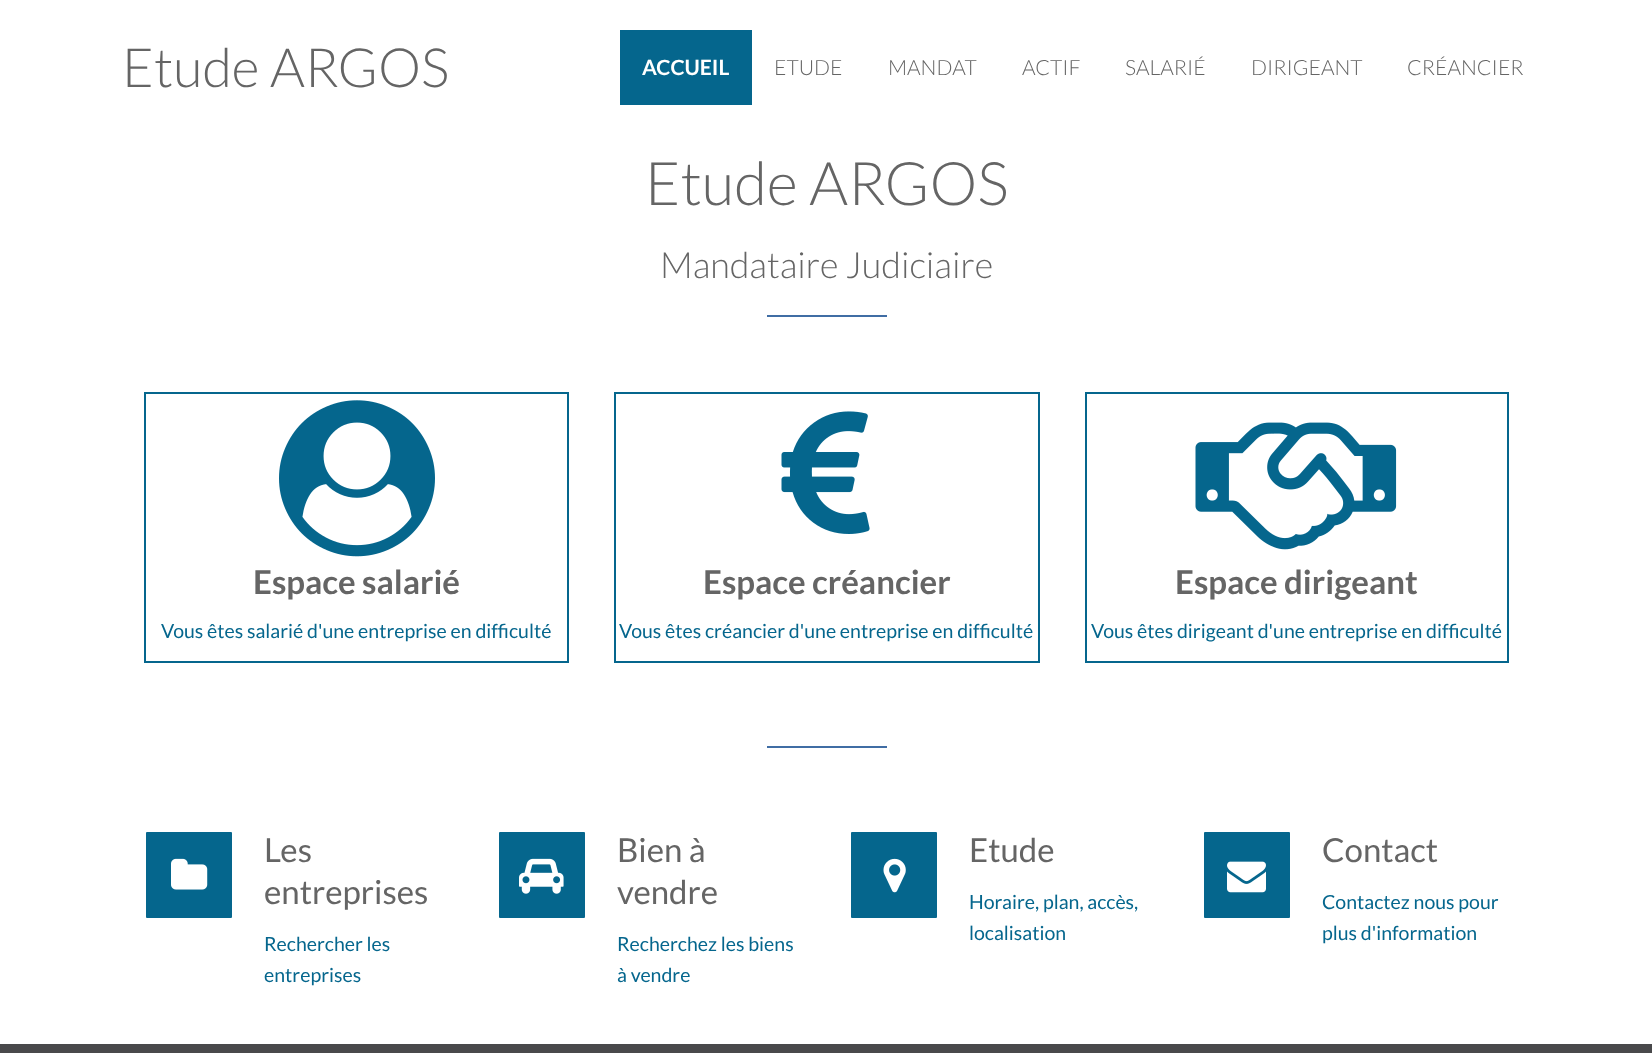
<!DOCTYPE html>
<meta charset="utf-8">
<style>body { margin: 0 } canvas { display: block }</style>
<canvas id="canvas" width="1652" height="1053"></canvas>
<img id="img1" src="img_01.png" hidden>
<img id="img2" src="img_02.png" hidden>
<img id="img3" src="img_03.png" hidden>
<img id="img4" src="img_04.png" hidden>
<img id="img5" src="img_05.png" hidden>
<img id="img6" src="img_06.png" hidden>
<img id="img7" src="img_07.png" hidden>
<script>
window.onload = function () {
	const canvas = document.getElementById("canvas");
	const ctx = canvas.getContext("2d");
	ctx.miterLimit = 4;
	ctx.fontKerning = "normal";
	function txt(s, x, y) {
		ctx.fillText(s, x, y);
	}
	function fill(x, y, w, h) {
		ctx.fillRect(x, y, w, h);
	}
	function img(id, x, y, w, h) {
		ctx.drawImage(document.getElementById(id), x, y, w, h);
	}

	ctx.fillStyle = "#FFFFFF";
	fill(0, 0, 1652, 1053);
	ctx.fillStyle = "#05668D";
	fill(620, 30, 132, 75);
	ctx.fillStyle = "#406DA4";
	fill(767, 315, 120, 2);
	ctx.strokeStyle = "#05668D";
	ctx.lineWidth = 2;
	ctx.strokeRect(145, 393, 423, 269);
	img("img1", 279, 400, 156, 157);
	ctx.strokeRect(615, 393, 424, 269);
	img("img2", 781, 411, 89, 123);
	ctx.strokeRect(1086, 393, 422, 269);
	img("img3", 1195, 422, 202, 128);
	fill(767, 746, 120, 2);
	ctx.fillStyle = "#05668D";
	ctx.beginPath();
	ctx.roundRect(145, 831, 88, 88, 2);
	ctx.fill();
	ctx.strokeStyle = "#FFFFFF";
	ctx.stroke();
	img("img4", 171, 858, 37, 32);
	ctx.beginPath();
	ctx.roundRect(498, 831, 88, 88, 2);
	ctx.fill();
	ctx.stroke();
	img("img5", 519, 858, 45, 36);
	ctx.beginPath();
	ctx.roundRect(850, 831, 88, 88, 2);
	ctx.fill();
	ctx.stroke();
	img("img6", 883, 858, 23, 35);
	ctx.beginPath();
	ctx.roundRect(1203, 831, 88, 88, 2);
	ctx.fill();
	ctx.stroke();
	img("img7", 1227, 861, 39, 32);
	ctx.fillStyle = "#49494B";
	fill(0, 1044, 1652, 9);
	ctx.font = "300 54px Lato";
	ctx.fillStyle = "#656565";
	txt("Etude ARGOS", 122, 87);
	ctx.font = "bold 21px Lato";
	ctx.fillStyle = "#FFFFFF";
	txt("ACCUEIL", 642, 75);
	ctx.font = "300 21px Lato";
	ctx.fillStyle = "#656565";
	txt("ETUDE", 774, 75);
	txt("MANDAT", 888, 75);
	txt("ACTIF", 1022, 75);
	txt("SALARIÉ", 1125, 75);
	txt("DIRIGEANT", 1251, 75);
	txt("CRÉANCIER", 1407, 75);
	ctx.font = "300 60px Lato";
	txt("Etude ARGOS", 645, 205);
	ctx.font = "300 36px Lato";
	txt("Mandataire Judiciaire", 660, 278);
	ctx.font = "bold 33px Lato";
	txt("Espace salarié", 253, 594);
	ctx.font = "19.5px Lato";
	ctx.fillStyle = "#05668D";
	txt("Vous êtes salarié d'une entreprise en difficulté", 161, 638);
	ctx.font = "bold 33px Lato";
	ctx.fillStyle = "#656565";
	txt("Espace créancier", 703, 594);
	ctx.font = "19.5px Lato";
	ctx.fillStyle = "#05668D";
	txt("Vous êtes créancier d'une entreprise en difficulté", 619, 638);
	ctx.font = "bold 33px Lato";
	ctx.fillStyle = "#656565";
	txt("Espace dirigeant", 1175, 594);
	ctx.font = "19.5px Lato";
	ctx.fillStyle = "#05668D";
	txt("Vous êtes dirigeant d'une entreprise en difficulté", 1091, 638);
	ctx.font = "33px Lato";
	ctx.fillStyle = "#656565";
	txt("Les", 264, 862);
	txt("entreprises", 264, 904);
	ctx.font = "19.5px Lato";
	ctx.fillStyle = "#05668D";
	txt("Rechercher les", 264, 951);
	txt("entreprises", 264, 982);
	ctx.font = "33px Lato";
	ctx.fillStyle = "#656565";
	txt("Bien à", 617, 862);
	txt("vendre", 617, 904);
	ctx.font = "19.5px Lato";
	ctx.fillStyle = "#05668D";
	txt("Recherchez les biens", 617, 951);
	txt("à vendre", 617, 982);
	ctx.font = "33px Lato";
	ctx.fillStyle = "#656565";
	txt("Etude", 969, 862);
	ctx.font = "19.5px Lato";
	ctx.fillStyle = "#05668D";
	txt("Horaire, plan, accès,", 969, 909);
	txt("localisation", 969, 940);
	ctx.font = "33px Lato";
	ctx.fillStyle = "#656565";
	txt("Contact", 1322, 862);
	ctx.font = "19.5px Lato";
	ctx.fillStyle = "#05668D";
	txt("Contactez nous pour", 1322, 909);
	txt("plus d'information", 1322, 940);
};
</script>
